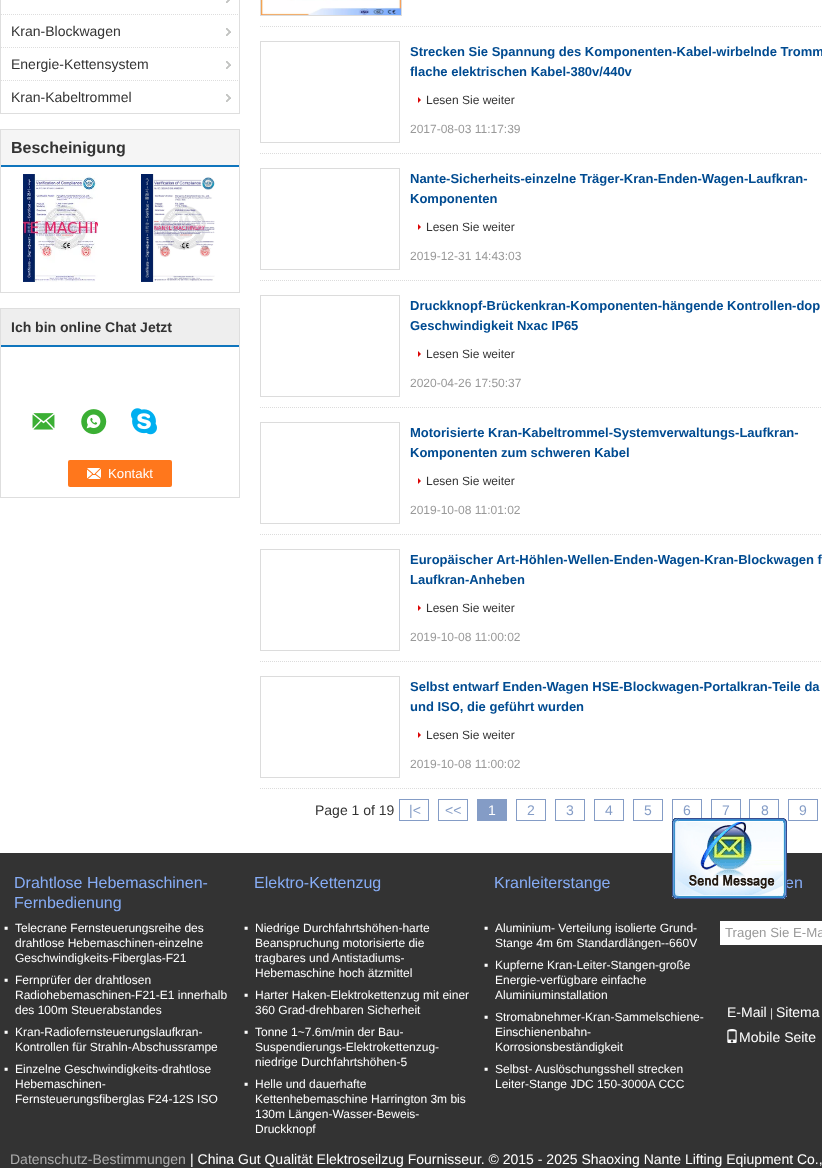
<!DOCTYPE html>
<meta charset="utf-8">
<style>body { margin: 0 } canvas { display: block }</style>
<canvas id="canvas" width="822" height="1168"></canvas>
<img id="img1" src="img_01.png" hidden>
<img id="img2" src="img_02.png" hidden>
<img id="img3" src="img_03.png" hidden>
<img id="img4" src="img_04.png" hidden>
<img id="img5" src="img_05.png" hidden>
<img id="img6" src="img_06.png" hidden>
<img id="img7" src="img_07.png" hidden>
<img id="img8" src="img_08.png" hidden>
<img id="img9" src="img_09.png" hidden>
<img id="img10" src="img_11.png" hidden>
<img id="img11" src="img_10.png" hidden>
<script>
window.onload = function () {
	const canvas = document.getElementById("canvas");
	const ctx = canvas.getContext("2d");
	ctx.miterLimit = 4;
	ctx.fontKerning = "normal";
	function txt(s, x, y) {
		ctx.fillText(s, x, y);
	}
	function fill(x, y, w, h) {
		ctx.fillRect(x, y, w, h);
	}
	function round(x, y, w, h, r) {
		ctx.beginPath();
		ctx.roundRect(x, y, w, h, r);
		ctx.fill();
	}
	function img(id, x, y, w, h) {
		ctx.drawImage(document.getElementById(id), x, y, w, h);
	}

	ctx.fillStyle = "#FFFFFF";
	fill(0, 0, 822, 1168);
	ctx.strokeStyle = "#DEDEDE";
	ctx.strokeRect(0.5, -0.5, 239, 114);
	img("img1", 226, 0, 4, 3);
	ctx.beginPath();
	ctx.moveTo(1, 14.5);
	ctx.lineTo(239, 14.5);
	ctx.setLineDash([1, 1]);
	ctx.stroke();
	img("img2", 226, 28, 5, 8);
	ctx.beginPath();
	ctx.moveTo(1, 47.5);
	ctx.lineTo(239, 47.5);
	ctx.stroke();
	img("img2", 226, 61, 5, 8);
	ctx.beginPath();
	ctx.moveTo(1, 80.5);
	ctx.lineTo(239, 80.5);
	ctx.stroke();
	img("img2", 226, 94, 5, 8);
	ctx.setLineDash([]);
	ctx.strokeRect(0.5, 129.5, 239, 163);
	ctx.fillStyle = "#F5F5F5";
	fill(1, 130, 238, 35);
	ctx.fillStyle = "#0F75BD";
	fill(1, 165, 238, 2);
	img("img3", 23, 174, 75, 108);
	img("img4", 141, 174, 74, 108);
	ctx.strokeRect(0.5, 308.5, 239, 189);
	ctx.fillStyle = "#EEEEEE";
	fill(1, 309, 238, 36);
	ctx.fillStyle = "#0F75BD";
	fill(1, 345, 238, 2);
	img("img5", 32, 413, 23, 17);
	img("img6", 81, 409, 26, 26);
	img("img7", 131, 408, 26, 27);
	ctx.fillStyle = "#FF771C";
	round(68, 460, 104, 27, 2);
	img("img8", 87, 468, 14, 11);
	ctx.beginPath();
	ctx.moveTo(260, 26.5);
	ctx.lineTo(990, 26.5);
	ctx.strokeStyle = "#DCDCDC";
	ctx.setLineDash([1, 1]);
	ctx.stroke();
	ctx.setLineDash([]);
	ctx.strokeRect(260.5, -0.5, 141, 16);
	img("img9", 261, 0, 140, 15);
	ctx.beginPath();
	ctx.moveTo(260, 153.5);
	ctx.lineTo(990, 153.5);
	ctx.setLineDash([1, 1]);
	ctx.stroke();
	ctx.setLineDash([]);
	ctx.strokeRect(260.5, 41.5, 139, 101);
	ctx.fillStyle = "#DB0505";
	ctx.beginPath();
	ctx.moveTo(418, 103);
	ctx.lineTo(418, 97);
	ctx.lineTo(421, 100);
	ctx.closePath();
	ctx.fill();
	ctx.beginPath();
	ctx.moveTo(260, 280.5);
	ctx.lineTo(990, 280.5);
	ctx.setLineDash([1, 1]);
	ctx.stroke();
	ctx.setLineDash([]);
	ctx.strokeRect(260.5, 168.5, 139, 101);
	ctx.beginPath();
	ctx.moveTo(418, 230);
	ctx.lineTo(418, 224);
	ctx.lineTo(421, 227);
	ctx.closePath();
	ctx.fill();
	ctx.beginPath();
	ctx.moveTo(260, 407.5);
	ctx.lineTo(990, 407.5);
	ctx.setLineDash([1, 1]);
	ctx.stroke();
	ctx.setLineDash([]);
	ctx.strokeRect(260.5, 295.5, 139, 101);
	ctx.beginPath();
	ctx.moveTo(418, 357);
	ctx.lineTo(418, 351);
	ctx.lineTo(421, 354);
	ctx.closePath();
	ctx.fill();
	ctx.beginPath();
	ctx.moveTo(260, 534.5);
	ctx.lineTo(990, 534.5);
	ctx.setLineDash([1, 1]);
	ctx.stroke();
	ctx.setLineDash([]);
	ctx.strokeRect(260.5, 422.5, 139, 101);
	ctx.beginPath();
	ctx.moveTo(418, 484);
	ctx.lineTo(418, 478);
	ctx.lineTo(421, 481);
	ctx.closePath();
	ctx.fill();
	ctx.beginPath();
	ctx.moveTo(260, 661.5);
	ctx.lineTo(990, 661.5);
	ctx.setLineDash([1, 1]);
	ctx.stroke();
	ctx.setLineDash([]);
	ctx.strokeRect(260.5, 549.5, 139, 101);
	ctx.beginPath();
	ctx.moveTo(418, 611);
	ctx.lineTo(418, 605);
	ctx.lineTo(421, 608);
	ctx.closePath();
	ctx.fill();
	ctx.beginPath();
	ctx.moveTo(260, 788.5);
	ctx.lineTo(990, 788.5);
	ctx.setLineDash([1, 1]);
	ctx.stroke();
	ctx.setLineDash([]);
	ctx.strokeRect(260.5, 676.5, 139, 101);
	ctx.beginPath();
	ctx.moveTo(418, 738);
	ctx.lineTo(418, 732);
	ctx.lineTo(421, 735);
	ctx.closePath();
	ctx.fill();
	ctx.strokeStyle = "#849CC6";
	ctx.strokeRect(399.5, 799.5, 29, 21);
	ctx.strokeRect(438.5, 799.5, 29, 21);
	ctx.fillStyle = "#849CC6";
	fill(477, 799, 30, 22);
	ctx.strokeRect(516.5, 799.5, 29, 21);
	ctx.strokeRect(555.5, 799.5, 29, 21);
	ctx.strokeRect(594.5, 799.5, 29, 21);
	ctx.strokeRect(633.5, 799.5, 29, 21);
	ctx.strokeRect(672.5, 799.5, 29, 21);
	ctx.strokeRect(711.5, 799.5, 29, 21);
	ctx.strokeRect(749.5, 799.5, 29, 21);
	ctx.strokeRect(788.5, 799.5, 29, 21);
	ctx.fillStyle = "#333333";
	fill(0, 853, 822, 315);
	ctx.fillStyle = "#FFFFFF";
	fill(720, 921, 102, 24);
	img("img10", 727, 1029, 10, 14);
	ctx.font = "14px Liberation Sans";
	ctx.fillStyle = "#333333";
	txt("Kran-Blockwagen", 11, 36);
	txt("Energie-Kettensystem", 11, 69);
	txt("Kran-Kabeltrommel", 11, 102);
	ctx.font = "bold 16px Liberation Sans";
	txt("Bescheinigung", 11, 153);
	ctx.font = "bold 14px Liberation Sans";
	txt("Ich bin online Chat Jetzt", 11, 332);
	ctx.font = "13.25px Liberation Sans";
	ctx.fillStyle = "#FFFFFF";
	txt("Kontakt", 108, 478);
	ctx.font = "bold 13px Liberation Sans";
	ctx.fillStyle = "#004B91";
	txt("Strecken Sie Spannung des Komponenten-Kabel-wirbelnde Tromm", 410, 56);
	txt("flache elektrischen Kabel-380v/440v", 410, 76);
	ctx.font = "12px Liberation Sans";
	ctx.fillStyle = "#333333";
	txt("Lesen Sie weiter", 426, 104);
	ctx.fillStyle = "#999999";
	txt("2017-08-03 11:17:39", 410, 133);
	ctx.font = "bold 13px Liberation Sans";
	ctx.fillStyle = "#004B91";
	txt("Nante-Sicherheits-einzelne Träger-Kran-Enden-Wagen-Laufkran-", 410, 183);
	txt("Komponenten", 410, 203);
	ctx.font = "12px Liberation Sans";
	ctx.fillStyle = "#333333";
	txt("Lesen Sie weiter", 426, 231);
	ctx.fillStyle = "#999999";
	txt("2019-12-31 14:43:03", 410, 260);
	ctx.font = "bold 13px Liberation Sans";
	ctx.fillStyle = "#004B91";
	txt("Druckknopf-Brückenkran-Komponenten-hängende Kontrollen-dop", 410, 310);
	txt("Geschwindigkeit Nxac IP65", 410, 330);
	ctx.font = "12px Liberation Sans";
	ctx.fillStyle = "#333333";
	txt("Lesen Sie weiter", 426, 358);
	ctx.fillStyle = "#999999";
	txt("2020-04-26 17:50:37", 410, 387);
	ctx.font = "bold 13px Liberation Sans";
	ctx.fillStyle = "#004B91";
	txt("Motorisierte Kran-Kabeltrommel-Systemverwaltungs-Laufkran-", 410, 437);
	txt("Komponenten zum schweren Kabel", 410, 457);
	ctx.font = "12px Liberation Sans";
	ctx.fillStyle = "#333333";
	txt("Lesen Sie weiter", 426, 485);
	ctx.fillStyle = "#999999";
	txt("2019-10-08 11:01:02", 410, 514);
	ctx.font = "bold 13px Liberation Sans";
	ctx.fillStyle = "#004B91";
	txt("Europäischer Art-Höhlen-Wellen-Enden-Wagen-Kran-Blockwagen f", 410, 564);
	txt("Laufkran-Anheben", 410, 584);
	ctx.font = "12px Liberation Sans";
	ctx.fillStyle = "#333333";
	txt("Lesen Sie weiter", 426, 612);
	ctx.fillStyle = "#999999";
	txt("2019-10-08 11:00:02", 410, 641);
	ctx.font = "bold 13px Liberation Sans";
	ctx.fillStyle = "#004B91";
	txt("Selbst entwarf Enden-Wagen HSE-Blockwagen-Portalkran-Teile da", 410, 691);
	txt("und ISO, die geführt wurden", 410, 711);
	ctx.font = "12px Liberation Sans";
	ctx.fillStyle = "#333333";
	txt("Lesen Sie weiter", 426, 739);
	ctx.fillStyle = "#999999";
	txt("2019-10-08 11:00:02", 410, 768);
	ctx.font = "14px Liberation Sans";
	ctx.fillStyle = "#333333";
	txt("Page 1 of 19", 315, 815);
	ctx.fillStyle = "#849CC6";
	txt("|<", 409, 815);
	txt("<<", 445, 815);
	ctx.fillStyle = "#FFFFFF";
	txt("1", 488, 815);
	ctx.fillStyle = "#849CC6";
	txt("2", 527, 815);
	txt("3", 566, 815);
	txt("4", 605, 815);
	txt("5", 644, 815);
	txt("6", 683, 815);
	txt("7", 722, 815);
	txt("8", 761, 815);
	txt("9", 799, 815);
	ctx.font = "16px Liberation Sans";
	ctx.fillStyle = "#87ADF6";
	txt("Drahtlose Hebemaschinen-", 14, 888);
	txt("Fernbedienung", 14, 908);
	ctx.font = "12px Liberation Sans";
	ctx.fillStyle = "#FFFFFF";
	txt("▪", 4, 932);
	txt("Telecrane Fernsteuerungsreihe des", 15, 932);
	txt("drahtlose Hebemaschinen-einzelne", 15, 947);
	txt("Geschwindigkeits-Fiberglas-F21", 15, 962);
	txt("▪", 4, 984);
	txt("Fernprüfer der drahtlosen", 15, 984);
	txt("Radiohebemaschinen-F21-E1 innerhalb", 15, 999);
	txt("des 100m Steuerabstandes", 15, 1014);
	txt("▪", 4, 1036);
	txt("Kran-Radiofernsteuerungslaufkran-", 15, 1036);
	txt("Kontrollen für Strahln-Abschussrampe", 15, 1051);
	txt("▪", 4, 1073);
	txt("Einzelne Geschwindigkeits-drahtlose", 15, 1073);
	txt("Hebemaschinen-", 15, 1088);
	txt("Fernsteuerungsfiberglas F24-12S ISO", 15, 1103);
	ctx.font = "16px Liberation Sans";
	ctx.fillStyle = "#87ADF6";
	txt("Elektro-Kettenzug", 254, 888);
	ctx.font = "12px Liberation Sans";
	ctx.fillStyle = "#FFFFFF";
	txt("▪", 244, 932);
	txt("Niedrige Durchfahrtshöhen-harte", 255, 932);
	txt("Beanspruchung motorisierte die", 255, 947);
	txt("tragbares und Antistadiums-", 255, 962);
	txt("Hebemaschine hoch ätzmittel", 255, 977);
	txt("▪", 244, 999);
	txt("Harter Haken-Elektrokettenzug mit einer", 255, 999);
	txt("360 Grad-drehbaren Sicherheit", 255, 1014);
	txt("▪", 244, 1036);
	txt("Tonne 1~7.6m/min der Bau-", 255, 1036);
	txt("Suspendierungs-Elektrokettenzug-", 255, 1051);
	txt("niedrige Durchfahrtshöhen-5", 255, 1066);
	txt("▪", 244, 1088);
	txt("Helle und dauerhafte", 255, 1088);
	txt("Kettenhebemaschine Harrington 3m bis", 255, 1103);
	txt("130m Längen-Wasser-Beweis-", 255, 1118);
	txt("Druckknopf", 255, 1133);
	ctx.font = "16px Liberation Sans";
	ctx.fillStyle = "#87ADF6";
	txt("Kranleiterstange", 494, 888);
	ctx.font = "12px Liberation Sans";
	ctx.fillStyle = "#FFFFFF";
	txt("▪", 484, 932);
	txt("Aluminium- Verteilung isolierte Grund-", 495, 932);
	txt("Stange 4m 6m Standardlängen--660V", 495, 947);
	txt("▪", 484, 969);
	txt("Kupferne Kran-Leiter-Stangen-große", 495, 969);
	txt("Energie-verfügbare einfache", 495, 984);
	txt("Aluminiuminstallation", 495, 999);
	txt("▪", 484, 1021);
	txt("Stromabnehmer-Kran-Sammelschiene-", 495, 1021);
	txt("Einschienenbahn-", 495, 1036);
	txt("Korrosionsbeständigkeit", 495, 1051);
	txt("▪", 484, 1073);
	txt("Selbst- Auslöschungsshell strecken", 495, 1073);
	txt("Leiter-Stange JDC 150-3000A CCC", 495, 1088);
	ctx.font = "16px Liberation Sans";
	ctx.fillStyle = "#87ADF6";
	txt("en", 785, 888);
	img("img11", 672, 818, 115, 81);
	ctx.font = "13.25px Liberation Sans";
	ctx.fillStyle = "#999999";
	txt("Tragen Sie E-Ma", 725, 937);
	ctx.font = "14px Liberation Sans";
	ctx.fillStyle = "#FFFFFF";
	txt("E-Mail", 727, 1017);
	ctx.font = "12px Liberation Sans";
	ctx.fillStyle = "#DDDDDD";
	txt("|", 770, 1017);
	ctx.font = "14px Liberation Sans";
	ctx.fillStyle = "#FFFFFF";
	txt("Sitema", 776, 1017);
	txt("Mobile Seite", 739, 1042);
	ctx.fillStyle = "#ADADAD";
	txt("Datenschutz-Bestimmungen", 10, 1164);
	ctx.fillStyle = "#FFFFFF";
	txt("| China Gut Qualität Elektroseilzug Fournisseur. © 2015 - 2025 Shaoxing Nante Lifting Eqiupment Co.,", 190, 1164);
};
</script>
